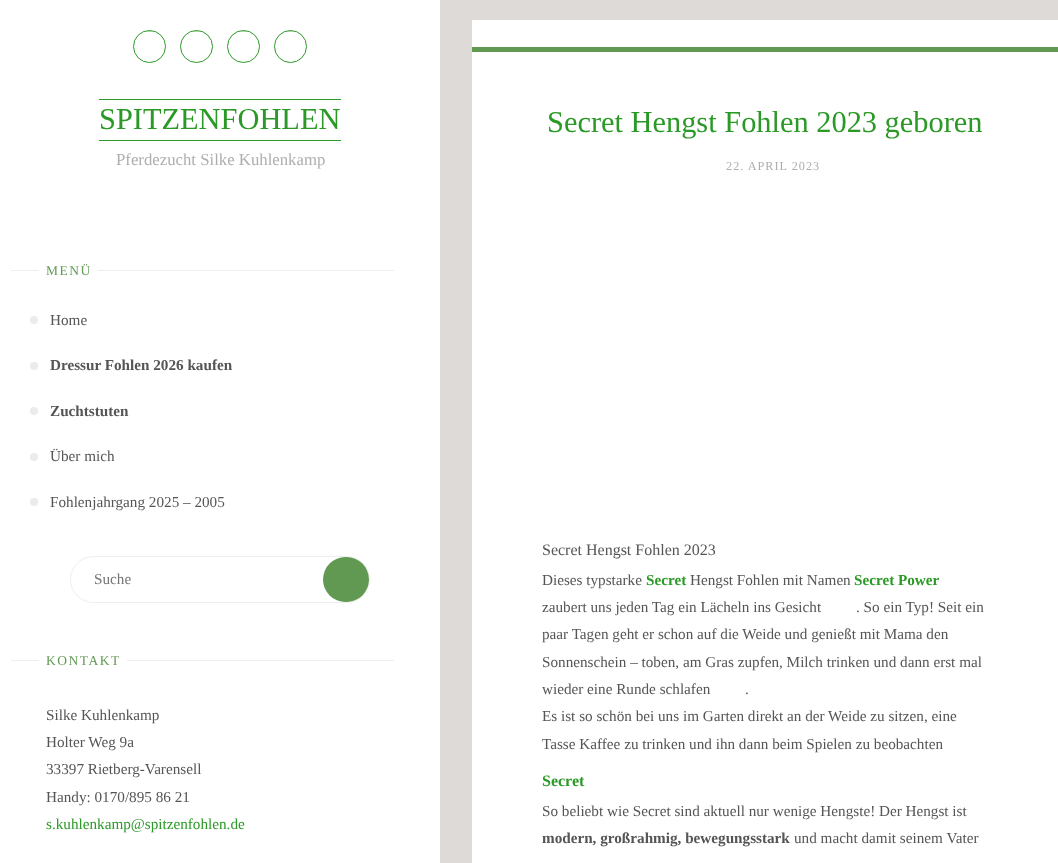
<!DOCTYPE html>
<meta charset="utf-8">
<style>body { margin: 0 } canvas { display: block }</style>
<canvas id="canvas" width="1058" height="863"></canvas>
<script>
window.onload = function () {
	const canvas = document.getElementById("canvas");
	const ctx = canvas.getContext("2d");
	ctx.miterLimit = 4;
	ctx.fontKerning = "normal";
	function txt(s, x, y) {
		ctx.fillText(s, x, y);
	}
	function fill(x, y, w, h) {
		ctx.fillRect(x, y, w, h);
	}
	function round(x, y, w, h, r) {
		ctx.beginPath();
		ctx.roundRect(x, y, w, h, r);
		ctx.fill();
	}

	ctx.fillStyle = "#DDDAD7";
	fill(0, 0, 1058, 863);
	ctx.fillStyle = "#FFFFFF";
	fill(0, 0, 440, 863);
	ctx.beginPath();
	ctx.arc(149.5, 46.5, 16, 0, Math.PI * 2);
	ctx.strokeStyle = "#2B9926";
	ctx.stroke();
	ctx.fillStyle = "#619952";
	ctx.beginPath();
	ctx.moveTo(149.5, 31.5);
	ctx.lineTo(152.5, 31);
	ctx.bezierCurveTo(150.5, 31, 148.5, 31, 146.5, 31);
	ctx.closePath();
	ctx.fill();
	ctx.beginPath();
	ctx.arc(196.5, 46.5, 16, 0, Math.PI * 2);
	ctx.stroke();
	ctx.beginPath();
	ctx.moveTo(196.5, 31.5);
	ctx.lineTo(199.5, 31);
	ctx.bezierCurveTo(197.5, 31, 195.5, 31, 193.5, 31);
	ctx.closePath();
	ctx.fill();
	ctx.beginPath();
	ctx.arc(243.5, 46.5, 16, 0, Math.PI * 2);
	ctx.stroke();
	ctx.beginPath();
	ctx.moveTo(243.5, 31.5);
	ctx.lineTo(246.5, 31);
	ctx.bezierCurveTo(244.5, 31, 242.5, 31, 240.5, 31);
	ctx.closePath();
	ctx.fill();
	ctx.beginPath();
	ctx.arc(290.5, 46.5, 16, 0, Math.PI * 2);
	ctx.stroke();
	ctx.beginPath();
	ctx.moveTo(290.5, 31.5);
	ctx.lineTo(293.5, 31);
	ctx.bezierCurveTo(291.5, 31, 289.5, 31, 287.5, 31);
	ctx.closePath();
	ctx.fill();
	ctx.fillStyle = "#2B9926";
	fill(99, 99, 242, 1);
	fill(99, 140, 242, 1);
	ctx.fillStyle = "#EEEEEE";
	fill(11, 270, 383, 1);
	ctx.fillStyle = "#FFFFFF";
	fill(39, 270, 59, 1);
	ctx.fillStyle = "#EBEBEB";
	ctx.beginPath();
	ctx.arc(34, 320, 4, 0, Math.PI * 2);
	ctx.fill();
	ctx.beginPath();
	ctx.arc(34, 366, 4, 0, Math.PI * 2);
	ctx.fill();
	ctx.beginPath();
	ctx.arc(34, 411, 4, 0, Math.PI * 2);
	ctx.fill();
	ctx.beginPath();
	ctx.arc(34, 457, 4, 0, Math.PI * 2);
	ctx.fill();
	ctx.beginPath();
	ctx.arc(34, 502, 4, 0, Math.PI * 2);
	ctx.fill();
	ctx.beginPath();
	ctx.roundRect(70.5, 556.5, 299, 46, 23);
	ctx.strokeStyle = "#EEEEEE";
	ctx.stroke();
	ctx.fillStyle = "#619952";
	round(323, 557, 46, 45, 22.5);
	ctx.fillStyle = "#EEEEEE";
	fill(11, 660, 383, 1);
	ctx.fillStyle = "#FFFFFF";
	fill(39, 660, 88, 1);
	fill(472, 20, 586, 843);
	ctx.fillStyle = "#619952";
	fill(472, 47, 586, 5);
	ctx.font = "30.4px Liberation Serif";
	ctx.fillStyle = "#2B9926";
	txt("SPITZENFOHLEN", 99, 129);
	ctx.font = "16.75px Liberation Serif";
	ctx.fillStyle = "#AEAEAE";
	txt("Pferdezucht Silke Kuhlenkamp", 116, 165);
	ctx.letterSpacing = "1.5px";
	ctx.font = "13.5px Liberation Serif";
	ctx.fillStyle = "#619952";
	txt("MENÜ", 46, 275);
	ctx.letterSpacing = "0px";
	ctx.font = "15.2px Liberation Serif";
	ctx.fillStyle = "#555555";
	txt("Home", 50, 325);
	ctx.font = "bold 15.2px Liberation Serif";
	txt("Dressur Fohlen 2026 kaufen", 50, 370);
	txt("Zuchtstuten", 50, 416);
	ctx.font = "15.2px Liberation Serif";
	txt("Über mich", 50, 461);
	txt("Fohlenjahrgang 2025 – 2005", 50, 507);
	ctx.fillStyle = "#757575";
	txt("Suche", 94, 584);
	ctx.letterSpacing = "1.5px";
	ctx.font = "13.5px Liberation Serif";
	ctx.fillStyle = "#619952";
	txt("KONTAKT", 46, 665);
	ctx.letterSpacing = "0px";
	ctx.font = "15.2px Liberation Serif";
	ctx.fillStyle = "#555555";
	txt("Silke Kuhlenkamp", 46, 720);
	txt("Holter Weg 9a", 46, 747);
	txt("33397 Rietberg-Varensell", 46, 774);
	txt("Handy: 0170/895 86 21", 46, 802);
	ctx.fillStyle = "#2B9926";
	txt("s.kuhlenkamp@spitzenfohlen.de", 46, 829);
	ctx.font = "30.4px Liberation Serif";
	txt("Secret Hengst Fohlen 2023 geboren", 547, 132);
	ctx.letterSpacing = "1px";
	ctx.font = "12.25px Liberation Serif";
	ctx.fillStyle = "#AEAEAE";
	txt("22. APRIL 2023", 726, 170);
	ctx.letterSpacing = "0px";
	ctx.font = "16px Liberation Serif";
	ctx.fillStyle = "#555555";
	txt("Secret Hengst Fohlen 2023", 542, 555);
	ctx.font = "15.2px Liberation Serif";
	txt("Dieses typstarke", 542, 585);
	ctx.font = "bold 15.2px Liberation Serif";
	ctx.fillStyle = "#2B9926";
	txt("Secret", 646, 585);
	ctx.font = "15.2px Liberation Serif";
	ctx.fillStyle = "#555555";
	txt("Hengst Fohlen mit Namen", 690, 585);
	ctx.font = "bold 15.2px Liberation Serif";
	ctx.fillStyle = "#2B9926";
	txt("Secret Power", 854, 585);
	ctx.font = "15.2px Liberation Serif";
	ctx.fillStyle = "#555555";
	txt("zaubert uns jeden Tag ein Lächeln ins Gesicht", 542, 612);
	txt(". So ein Typ! Seit ein", 856, 612);
	txt("paar Tagen geht er schon auf die Weide und genießt mit Mama den", 542, 639);
	txt("Sonnenschein – toben, am Gras zupfen, Milch trinken und dann erst mal", 542, 667);
	txt("wieder eine Runde schlafen", 542, 694);
	txt(".", 745, 694);
	txt("Es ist so schön bei uns im Garten direkt an der Weide zu sitzen, eine", 542, 721);
	txt("Tasse Kaffee zu trinken und ihn dann beim Spielen zu beobachten", 542, 749);
	ctx.font = "bold 16px Liberation Serif";
	ctx.fillStyle = "#2B9926";
	txt("Secret", 542, 786);
	ctx.font = "15.2px Liberation Serif";
	ctx.fillStyle = "#555555";
	txt("So beliebt wie Secret sind aktuell nur wenige Hengste! Der Hengst ist", 542, 816);
	ctx.font = "bold 15.2px Liberation Serif";
	txt("modern, großrahmig, bewegungsstark", 542, 843);
	ctx.font = "15.2px Liberation Serif";
	txt("und macht damit seinem Vater", 794, 843);
};
</script>
